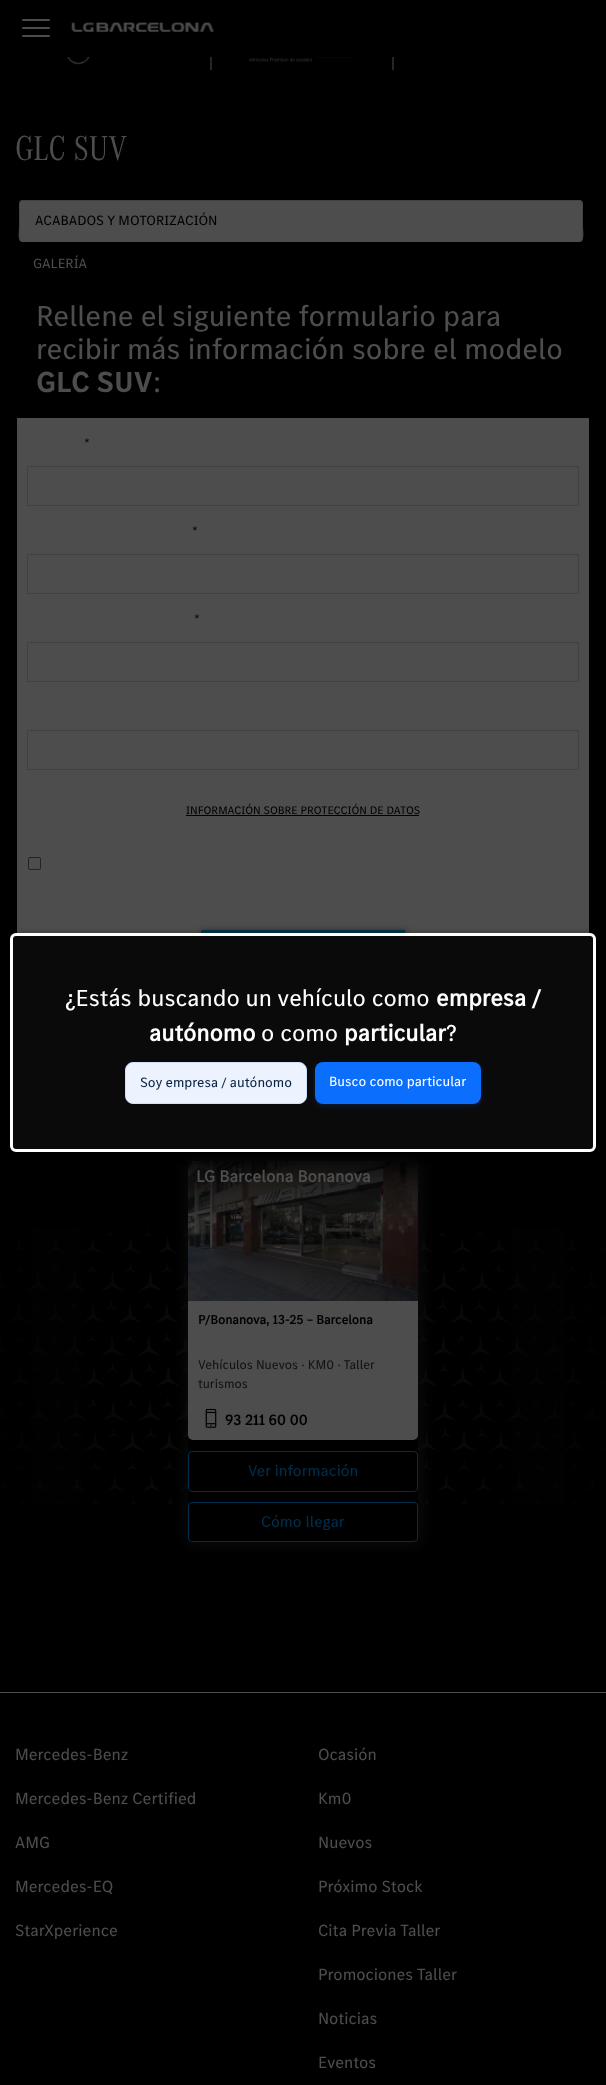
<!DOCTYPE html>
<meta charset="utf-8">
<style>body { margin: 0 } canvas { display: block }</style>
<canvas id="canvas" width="606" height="2085"></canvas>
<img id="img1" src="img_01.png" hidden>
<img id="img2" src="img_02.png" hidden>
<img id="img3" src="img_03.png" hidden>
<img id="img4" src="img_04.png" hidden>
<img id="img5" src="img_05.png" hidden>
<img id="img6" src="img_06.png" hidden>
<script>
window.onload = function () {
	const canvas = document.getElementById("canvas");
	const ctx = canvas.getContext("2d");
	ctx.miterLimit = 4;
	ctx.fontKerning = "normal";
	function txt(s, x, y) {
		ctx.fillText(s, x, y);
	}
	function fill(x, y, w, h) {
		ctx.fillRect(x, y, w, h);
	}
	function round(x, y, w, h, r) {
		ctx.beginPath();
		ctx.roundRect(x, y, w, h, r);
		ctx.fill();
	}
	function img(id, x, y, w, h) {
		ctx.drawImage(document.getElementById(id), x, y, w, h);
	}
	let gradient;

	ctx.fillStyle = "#000000";
	fill(0, 0, 606, 2085);
	ctx.fillStyle = "#4D4D4D";
	round(22, 19, 28, 2, 1);
	round(22, 27, 28, 2, 1);
	round(22, 35, 28, 2, 1);
	img("img1", 71, 22, 144, 11);
	ctx.fillStyle = "#262626";
	fill(210, 57, 2, 13);
	img("img2", 67, 57, 23, 8);
	fill(392, 57, 2, 13);
	img("img3", 248, 57, 107, 5);
	ctx.fillStyle = "#4D4D4D";
	round(19, 200, 564, 42, 4);
	ctx.beginPath();
	ctx.moveTo(20.5, 240.5);
	ctx.bezierCurveTo(18, 238, 19.5, 229.5, 19.5, 226.5);
	ctx.lineTo(19.5, 209.5);
	ctx.bezierCurveTo(19.5, 207, 18.5, 201.5, 22.5, 200.5);
	ctx.lineTo(579.5, 200.5);
	ctx.bezierCurveTo(583.5, 201.5, 582.5, 207, 582.5, 209.5);
	ctx.lineTo(582.5, 226.5);
	ctx.bezierCurveTo(582.5, 229.5, 584, 238, 581.5, 240.5);
	ctx.strokeStyle = "#424242";
	ctx.stroke();
	fill(17, 418, 572, 515);
	ctx.strokeStyle = "#414141";
	ctx.strokeRect(27.5, 466.5, 551, 39);
	ctx.strokeRect(27.5, 554.5, 551, 39);
	ctx.strokeRect(27.5, 642.5, 551, 39);
	ctx.strokeRect(27.5, 730.5, 551, 39);
	ctx.fillStyle = "#000000";
	fill(186, 815, 233, 1);
	ctx.beginPath();
	ctx.roundRect(28.5, 857.5, 12, 12, 1.5);
	ctx.strokeStyle = "#232323";
	ctx.stroke();
	ctx.fillStyle = "#262626";
	ctx.filter = "blur(3px)";
	ctx.beginPath();
	ctx.rect(202, 931, 204, 54);
	ctx.fill();
	ctx.filter = "none";
	ctx.fillStyle = "#003448";
	fill(201, 930, 204, 3);
	img("img4", 0, 1228, 606, 278);
	ctx.save();
	ctx.beginPath();
	ctx.rect(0, 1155, 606, 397);
	ctx.clip();
	ctx.fillStyle = "#0B0B0B";
	ctx.filter = "blur(7px)";
	ctx.beginPath();
	ctx.roundRect(187, 1160, 234, 385, 8);
	ctx.fill();
	ctx.filter = "none";
	ctx.restore();
	ctx.fillStyle = "#000000";
	round(188, 1161, 230, 381, 6);
	img("img5", 188, 1161, 230, 140);
	gradient = ctx.createLinearGradient(303, 1161, 303, 1301);
	gradient.addColorStop(0, "rgba(2, 2, 2, 0.83)");
	gradient.addColorStop(0.4, "rgba(17, 17, 17, 0.22)");
	gradient.addColorStop(1, "rgba(17, 17, 17, 0)");
	ctx.fillStyle = gradient;
	ctx.beginPath();
	ctx.roundRect(188, 1161, 230, 140, [6, 6, 0, 0]);
	ctx.fill();
	ctx.fillStyle = "rgba(0, 0, 0, 0.5)";
	ctx.filter = "blur(4.5px)";
	ctx.beginPath();
	ctx.roundRect(10, 936, 586, 219, 6);
	ctx.fill();
	ctx.filter = "none";
	ctx.fillStyle = "#0A0A0A";
	ctx.beginPath();
	ctx.roundRect(11.5, 934.5, 583, 216, 4.5);
	ctx.fill();
	ctx.strokeStyle = "#FFFFFF";
	ctx.lineWidth = 3;
	ctx.stroke();
	ctx.fillStyle = "rgba(11, 110, 253, 0.18)";
	ctx.filter = "blur(3px)";
	ctx.beginPath();
	ctx.roundRect(315, 1064, 166, 42, 8);
	ctx.fill();
	ctx.filter = "none";
	ctx.fillStyle = "#EDF2FF";
	ctx.beginPath();
	ctx.roundRect(125.5, 1062.5, 181, 41, 7.5);
	ctx.fill();
	ctx.strokeStyle = "#CFE0FF";
	ctx.lineWidth = 1;
	ctx.stroke();
	ctx.fillStyle = "#0B6EFD";
	round(315, 1062, 166, 42, 8);
	ctx.fillStyle = "#4D4D4D";
	ctx.beginPath();
	ctx.roundRect(188, 1301, 230, 139, [0, 0, 5, 5]);
	ctx.fill();
	img("img6", 205, 1408, 12, 20);
	ctx.beginPath();
	ctx.roundRect(188.5, 1451.5, 229, 40, 3.5);
	ctx.strokeStyle = "#002E4D";
	ctx.stroke();
	ctx.fillStyle = "#000000";
	ctx.beginPath();
	ctx.roundRect(188.5, 1502.5, 229, 39, 3.5);
	ctx.fill();
	ctx.stroke();
	ctx.fillStyle = "#4D4D4D";
	fill(0, 1692, 606, 1);
	ctx.font = "36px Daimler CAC";
	txt("GLC SUV", 15, 160);
	ctx.font = "14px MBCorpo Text";
	ctx.fillStyle = "#000000";
	txt("ACABADOS Y MOTORIZACIÓN", 35, 225);
	ctx.fillStyle = "#4D4D4D";
	txt("GALERÍA", 33, 268);
	ctx.font = "30px MBCorpo Text";
	txt("Rellene el siguiente formulario para", 36, 326);
	txt("recibir más información sobre el modelo", 36, 359);
	ctx.font = "bold 30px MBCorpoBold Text";
	txt("GLC SUV", 36, 392);
	ctx.font = "30px MBCorpo Text";
	txt(":", 153, 392);
	ctx.font = "14px MBCorpo Text";
	ctx.fillStyle = "#240000";
	txt("*", 84, 448);
	txt("*", 192, 536);
	txt("*", 194, 624);
	ctx.font = "11.4px MBCorpo Text";
	ctx.fillStyle = "#000000";
	txt("INFORMACIÓN SOBRE PROTECCIÓN DE DATOS", 186, 814);
	ctx.font = "24px MBCorpo Text";
	ctx.fillStyle = "#FFFFFF";
	txt("¿Estás buscando un vehículo como", 65, 1006);
	ctx.font = "bold 24px MBCorpo Text";
	txt("empresa /", 436, 1006);
	txt("autónomo", 149, 1041);
	ctx.font = "24px MBCorpo Text";
	txt("o como", 261, 1041);
	ctx.font = "bold 24px MBCorpo Text";
	txt("particular", 344, 1041);
	ctx.font = "24px MBCorpo Text";
	txt("?", 446, 1041);
	ctx.font = "14px MBCorpo Text";
	ctx.fillStyle = "#0B2545";
	txt("Soy empresa / autónomo", 140, 1087);
	ctx.fillStyle = "#FFFFFF";
	txt("Busco como particular", 329, 1086);
	ctx.font = "bold 17px MBCorpo Text";
	ctx.fillStyle = "#4D4D4D";
	txt("LG Barcelona Bonanova", 196, 1182);
	ctx.font = "bold 13px MBCorpo Text";
	ctx.fillStyle = "#000000";
	txt("P/Bonanova, 13-25 – Barcelona", 198, 1324);
	ctx.font = "13px MBCorpo Text";
	ctx.fillStyle = "#121212";
	txt("Vehículos Nuevos · KM0 · Taller", 198, 1369);
	txt("turismos", 198, 1388);
	ctx.font = "bold 15px MBCorpo Text";
	ctx.fillStyle = "#000000";
	txt("93 211 60 00", 225, 1425);
	ctx.font = "16px MBCorpo Text";
	ctx.fillStyle = "#002E4D";
	txt("Ver información", 248, 1476);
	txt("Cómo llegar", 261, 1527);
	ctx.font = "16.75px MBCorpo Text";
	ctx.fillStyle = "#4D4D4D";
	txt("Mercedes-Benz", 15, 1760);
	txt("Mercedes-Benz Certified", 15, 1804);
	txt("AMG", 15, 1848);
	txt("Mercedes-EQ", 15, 1892);
	txt("StarXperience", 15, 1936);
	txt("Ocasión", 318, 1760);
	txt("Km0", 318, 1804);
	txt("Nuevos", 318, 1848);
	txt("Próximo Stock", 318, 1892);
	txt("Cita Previa Taller", 318, 1936);
	txt("Promociones Taller", 318, 1980);
	txt("Noticias", 318, 2024);
	txt("Eventos", 318, 2068);
};
</script>
